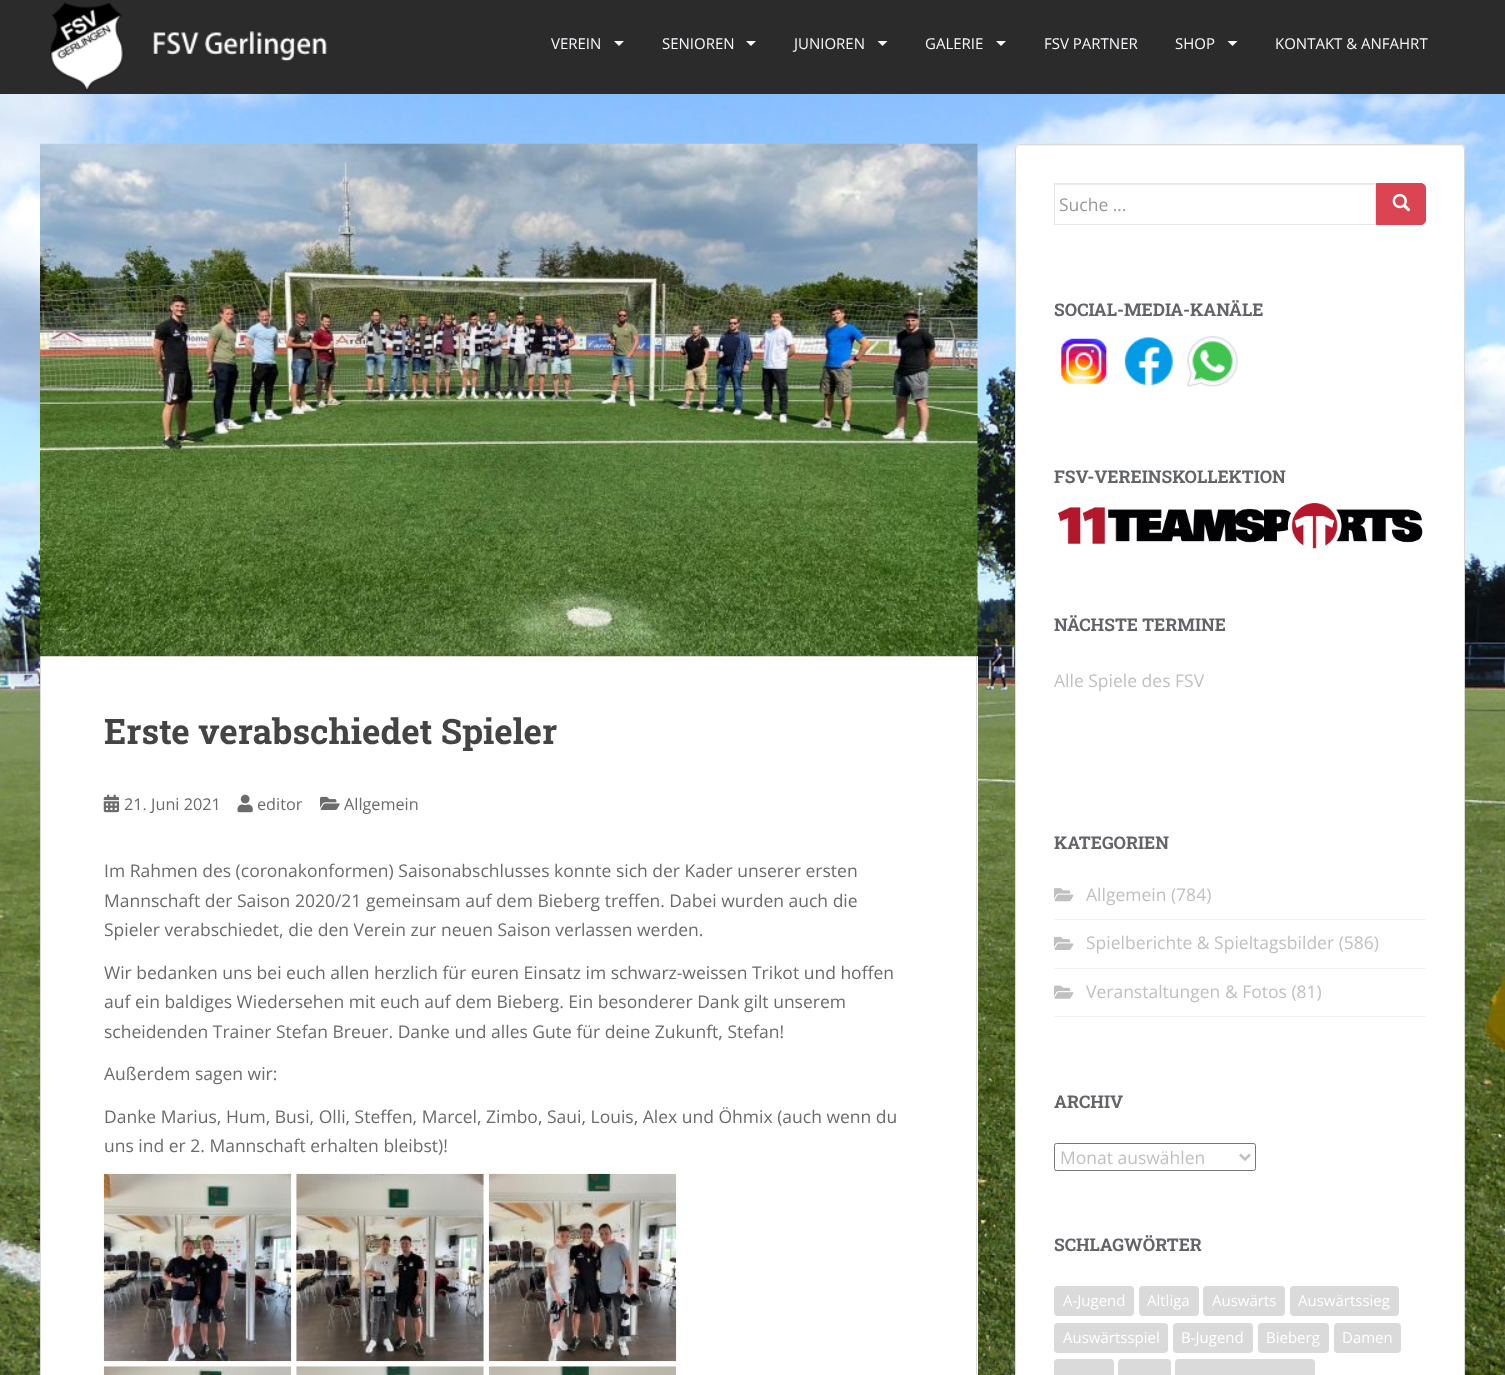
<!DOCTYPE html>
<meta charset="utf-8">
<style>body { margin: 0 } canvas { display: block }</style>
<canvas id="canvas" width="1505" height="1375"></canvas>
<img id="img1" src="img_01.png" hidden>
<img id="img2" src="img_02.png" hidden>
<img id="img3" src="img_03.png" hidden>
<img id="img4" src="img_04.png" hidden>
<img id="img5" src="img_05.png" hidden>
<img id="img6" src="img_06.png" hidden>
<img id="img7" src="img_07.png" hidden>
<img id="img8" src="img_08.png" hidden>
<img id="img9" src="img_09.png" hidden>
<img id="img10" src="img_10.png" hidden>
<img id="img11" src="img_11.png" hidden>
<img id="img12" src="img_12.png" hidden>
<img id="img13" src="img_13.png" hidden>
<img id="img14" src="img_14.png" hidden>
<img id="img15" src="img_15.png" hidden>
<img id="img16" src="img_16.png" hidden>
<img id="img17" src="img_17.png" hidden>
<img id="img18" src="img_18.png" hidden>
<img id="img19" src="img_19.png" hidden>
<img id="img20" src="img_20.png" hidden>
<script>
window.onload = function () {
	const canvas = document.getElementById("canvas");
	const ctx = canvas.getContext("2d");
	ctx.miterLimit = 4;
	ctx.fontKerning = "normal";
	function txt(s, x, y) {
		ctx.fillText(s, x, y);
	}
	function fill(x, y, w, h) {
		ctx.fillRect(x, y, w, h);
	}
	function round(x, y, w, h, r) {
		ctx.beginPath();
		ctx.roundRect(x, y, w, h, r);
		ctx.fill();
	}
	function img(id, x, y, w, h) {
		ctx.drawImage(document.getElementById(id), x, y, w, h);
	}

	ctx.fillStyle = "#FFFFFF";
	fill(0, 0, 1505, 1375);
	img("img1", 0, 94, 1505, 1281);
	ctx.fillStyle = "#2B2B2B";
	fill(0, 0, 1505, 94);
	img("img2", 50, 2, 277, 89);
	ctx.fillStyle = "#F5F7FA";
	ctx.beginPath();
	ctx.moveTo(614, 41);
	ctx.lineTo(624, 41);
	ctx.lineTo(619, 46);
	ctx.closePath();
	ctx.fill();
	ctx.beginPath();
	ctx.moveTo(746, 41);
	ctx.lineTo(756, 41);
	ctx.lineTo(751, 46);
	ctx.closePath();
	ctx.fill();
	ctx.beginPath();
	ctx.moveTo(877.5, 41);
	ctx.lineTo(887.5, 41);
	ctx.lineTo(882.5, 46);
	ctx.closePath();
	ctx.fill();
	ctx.beginPath();
	ctx.moveTo(996, 41);
	ctx.lineTo(1006, 41);
	ctx.lineTo(1001, 46);
	ctx.closePath();
	ctx.fill();
	ctx.beginPath();
	ctx.moveTo(1227.5, 41);
	ctx.lineTo(1237.5, 41);
	ctx.lineTo(1232.5, 46);
	ctx.closePath();
	ctx.fill();
	ctx.fillStyle = "#FFFFFF";
	fill(41, 656, 937, 719);
	ctx.fillStyle = "#DADADA";
	fill(976, 656, 1, 719);
	fill(40, 656, 1, 719);
	img("img3", 40, 143, 938, 514);
	img("img4", 103, 794, 17, 19);
	img("img5", 237, 794, 16, 19);
	img("img6", 320, 796, 20, 14);
	img("img7", 103, 1173, 189, 189);
	img("img8", 296, 1173, 188, 189);
	img("img9", 488, 1173, 189, 189);
	img("img10", 103, 1366, 189, 9);
	img("img11", 296, 1366, 188, 9);
	img("img12", 488, 1366, 189, 9);
	ctx.fillStyle = "#FFFFFF";
	round(1015, 144, 450, 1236, 5);
	ctx.fillStyle = "#F2F2F2";
	ctx.beginPath();
	ctx.moveTo(1020, 146);
	ctx.lineTo(1460, 146);
	ctx.bezierCurveTo(1462, 146, 1464, 148, 1464, 150);
	ctx.bezierCurveTo(1464, 147, 1463, 145, 1460, 145);
	ctx.lineTo(1020, 145);
	ctx.lineTo(1018, 146);
	ctx.lineTo(1017, 147);
	ctx.lineTo(1016, 150);
	ctx.bezierCurveTo(1016, 148, 1018, 146, 1020, 146);
	ctx.closePath();
	ctx.fill();
	ctx.beginPath();
	ctx.roundRect(1015.5, 144.5, 449, 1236, 4.5);
	ctx.strokeStyle = "#DADADA";
	ctx.stroke();
	ctx.fillStyle = "#ECECEC";
	fill(1055, 184, 320, 1);
	ctx.strokeStyle = "#E8E8E8";
	ctx.strokeRect(1054.5, 183.5, 321, 41);
	ctx.fillStyle = "#DA4453";
	ctx.beginPath();
	ctx.roundRect(1376.5, 183.5, 49, 41, [0, 4.5, 4.5, 0]);
	ctx.fill();
	ctx.strokeStyle = "#DA4453";
	ctx.stroke();
	img("img13", 1392, 193, 19, 19);
	img("img14", 1061, 338, 46, 46);
	img("img15", 1124, 337, 49, 49);
	img("img16", 1187, 336, 51, 51);
	img("img17", 1058, 502, 365, 47);
	ctx.fillStyle = "#F2F2F2";
	fill(1054, 919, 372, 1);
	img("img18", 1054, 888, 20, 14);
	fill(1054, 968, 372, 1);
	img("img19", 1054, 936, 20, 14);
	fill(1054, 1016, 372, 1);
	img("img20", 1054, 985, 20, 14);
	ctx.beginPath();
	ctx.roundRect(1054.5, 1143.5, 201, 27, 2);
	ctx.strokeStyle = "#767676";
	ctx.stroke();
	ctx.beginPath();
	ctx.moveTo(1240, 1154.5);
	ctx.lineTo(1245, 1159.5);
	ctx.lineTo(1250, 1154.5);
	ctx.strokeStyle = "#C1C0C0";
	ctx.lineWidth = 2.5;
	ctx.stroke();
	ctx.fillStyle = "#DADADA";
	round(1054, 1286, 80, 30, 4);
	round(1139, 1286, 60, 30, 4);
	round(1203, 1286, 82, 30, 4);
	round(1290, 1286, 109, 30, 4);
	round(1054, 1323, 114, 30, 4);
	round(1173, 1323, 80, 30, 4);
	round(1258, 1323, 71, 30, 4);
	round(1334, 1323, 67, 30, 4);
	round(1054, 1359, 60, 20, 4);
	round(1118, 1359, 53, 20, 4);
	round(1175, 1359, 140, 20, 4);
	ctx.font = "15px Open Sans";
	ctx.fillStyle = "#F5F7FA";
	txt("VEREIN", 551, 49);
	txt("SENIOREN", 662, 49);
	txt("JUNIOREN", 794, 49);
	txt("GALERIE", 925, 49);
	txt("FSV PARTNER", 1044, 49);
	txt("SHOP", 1175, 49);
	txt("KONTAKT & ANFAHRT", 1275, 49);
	ctx.font = "bold 35px Roboto Slab";
	ctx.fillStyle = "#444444";
	txt("Erste verabschiedet Spieler", 104, 744);
	ctx.font = "16.25px Open Sans";
	ctx.fillStyle = "#6B6B6B";
	txt("21. Juni 2021", 124, 810);
	txt("editor", 257, 810);
	txt("Allgemein", 344, 810);
	ctx.font = "17.5px Open Sans";
	txt("Im Rahmen des (coronakonformen) Saisonabschlusses konnte sich der Kader unserer ersten", 104, 877);
	txt("Mannschaft der Saison 2020/21 gemeinsam auf dem Bieberg treffen. Dabei wurden auch die", 104, 907);
	txt("Spieler verabschiedet, die den Verein zur neuen Saison verlassen werden.", 104, 936);
	txt("Wir bedanken uns bei euch allen herzlich für euren Einsatz im schwarz-weissen Trikot und hoffen", 104, 979);
	txt("auf ein baldiges Wiedersehen mit euch auf dem Bieberg. Ein besonderer Dank gilt unserem", 104, 1008);
	txt("scheidenden Trainer Stefan Breuer. Danke und alles Gute für deine Zukunft, Stefan!", 104, 1038);
	txt("Außerdem sagen wir:", 104, 1080);
	txt("Danke Marius, Hum, Busi, Olli, Steffen, Marcel, Zimbo, Saui, Louis, Alex und Öhmix (auch wenn du", 104, 1123);
	txt("uns ind er 2. Mannschaft erhalten bleibst)!", 104, 1152);
	ctx.fillStyle = "#999999";
	txt("Suche …", 1059, 211);
	ctx.font = "bold 17.5px Roboto Slab";
	ctx.fillStyle = "#636467";
	txt("SOCIAL-MEDIA-KANÄLE", 1054, 316);
	txt("FSV-VEREINSKOLLEKTION", 1054, 483);
	txt("NÄCHSTE TERMINE", 1054, 631);
	ctx.font = "17.5px Open Sans";
	ctx.fillStyle = "#C1C0C0";
	txt("Alle Spiele des FSV", 1054, 687);
	ctx.font = "bold 17.5px Roboto Slab";
	ctx.fillStyle = "#636467";
	txt("KATEGORIEN", 1054, 849);
	ctx.font = "17.5px Open Sans";
	ctx.fillStyle = "#C1C0C0";
	txt("Allgemein (784)", 1086, 901);
	txt("Spielberichte & Spieltagsbilder (586)", 1086, 949);
	txt("Veranstaltungen & Fotos (81)", 1086, 998);
	ctx.font = "bold 17.5px Roboto Slab";
	ctx.fillStyle = "#636467";
	txt("ARCHIV", 1054, 1108);
	ctx.font = "17.5px Open Sans";
	ctx.fillStyle = "#C1C0C0";
	txt("Monat auswählen", 1060, 1164);
	ctx.font = "bold 17.5px Roboto Slab";
	ctx.fillStyle = "#636467";
	txt("SCHLAGWÖRTER", 1054, 1251);
	ctx.font = "15px Open Sans";
	ctx.fillStyle = "#FFFFFF";
	txt("A-Jugend", 1063, 1306);
	txt("Altliga", 1147, 1306);
	txt("Auswärts", 1212, 1306);
	txt("Auswärtssieg", 1298, 1306);
	txt("Auswärtsspiel", 1063, 1343);
	txt("B-Jugend", 1181, 1343);
	txt("Bieberg", 1266, 1343);
	txt("Damen", 1342, 1343);
};
</script>
